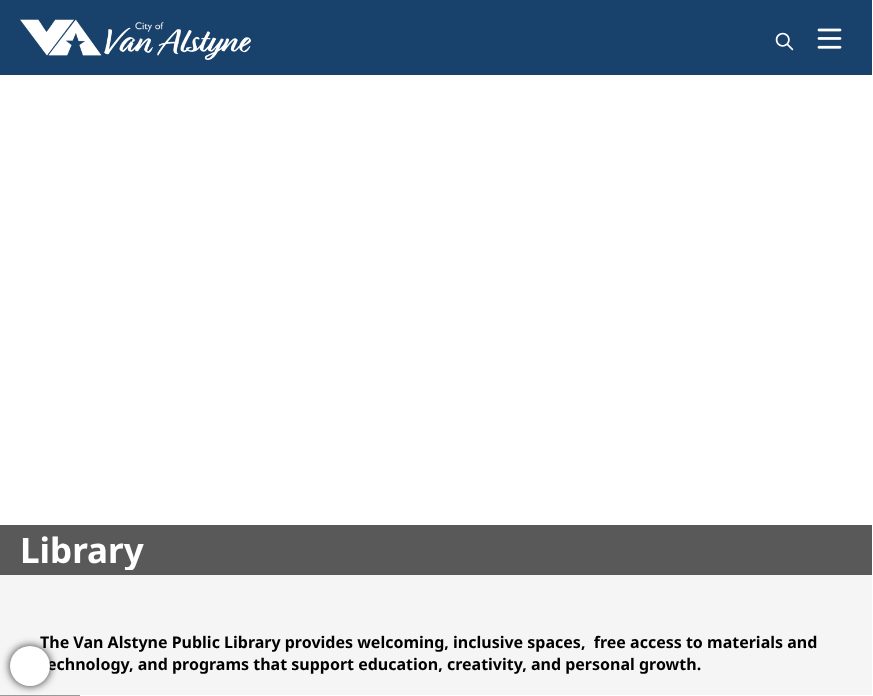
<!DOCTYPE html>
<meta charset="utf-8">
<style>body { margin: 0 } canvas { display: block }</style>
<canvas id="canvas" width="873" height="696"></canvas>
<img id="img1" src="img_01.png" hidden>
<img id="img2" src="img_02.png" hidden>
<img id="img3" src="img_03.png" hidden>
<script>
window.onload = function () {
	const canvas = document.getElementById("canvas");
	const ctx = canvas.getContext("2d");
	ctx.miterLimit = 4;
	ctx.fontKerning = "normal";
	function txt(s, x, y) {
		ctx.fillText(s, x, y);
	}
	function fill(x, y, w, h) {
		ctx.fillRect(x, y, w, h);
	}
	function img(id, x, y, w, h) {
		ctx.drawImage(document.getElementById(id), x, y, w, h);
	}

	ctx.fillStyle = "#FFFFFF";
	fill(0, 0, 873, 696);
	ctx.fillStyle = "#18416B";
	fill(0, 0, 872, 75);
	img("img1", 20, 19, 231, 41);
	img("img2", 817, 28, 25, 21);
	img("img3", 775, 32, 19, 19);
	ctx.fillStyle = "#595959";
	fill(0, 525, 872, 50);
	ctx.fillStyle = "#F5F5F5";
	fill(0, 575, 872, 120);
	ctx.fillStyle = "#999999";
	fill(0, 695, 80, 1);
	ctx.fillStyle = "#272727";
	ctx.filter = "blur(4px)";
	ctx.beginPath();
	ctx.roundRect(10, 646, 40, 40, 20);
	ctx.fill();
	ctx.filter = "none";
	ctx.save();
	ctx.beginPath();
	ctx.rect(0, 530, 872, 40);
	ctx.clip();
	ctx.font = "bold 35px Noto Sans";
	ctx.fillStyle = "#FFFFFF";
	txt("Library", 20, 563);
	ctx.restore();
	ctx.font = "bold 16px Noto Sans";
	ctx.fillStyle = "#000000";
	txt("The Van Alstyne Public Library provides welcoming, inclusive spaces,  free access to materials and", 40, 648);
	txt("echnology, and programs that support education, creativity, and personal growth.", 47, 670);
	ctx.fillStyle = "#FFFFFF";
	ctx.beginPath();
	ctx.arc(30, 666, 20, 0, Math.PI * 2);
	ctx.fill();
};
</script>
